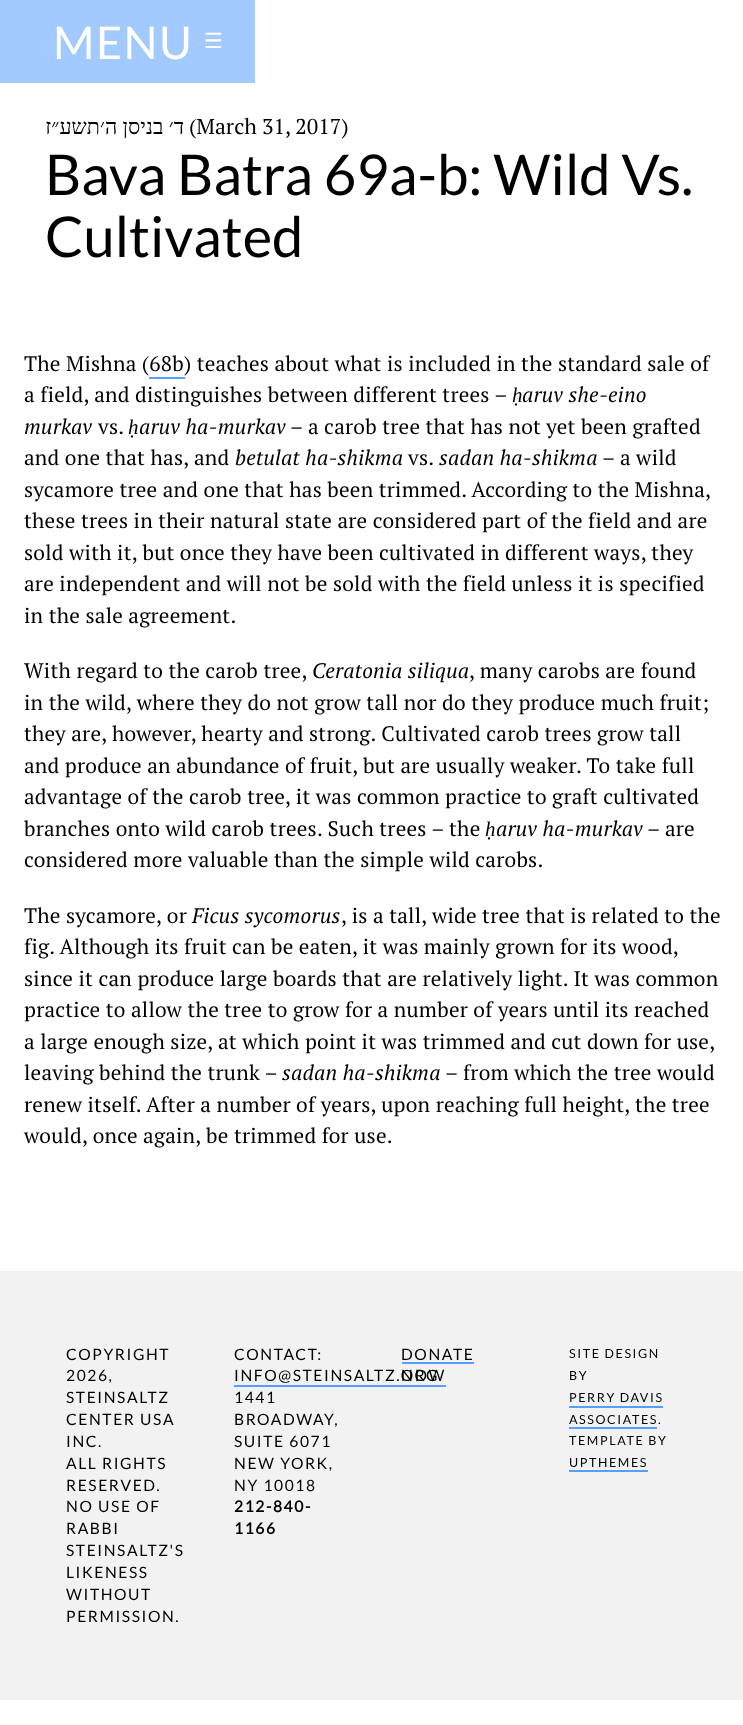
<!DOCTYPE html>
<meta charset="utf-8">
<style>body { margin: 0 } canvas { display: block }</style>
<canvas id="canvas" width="743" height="1725"></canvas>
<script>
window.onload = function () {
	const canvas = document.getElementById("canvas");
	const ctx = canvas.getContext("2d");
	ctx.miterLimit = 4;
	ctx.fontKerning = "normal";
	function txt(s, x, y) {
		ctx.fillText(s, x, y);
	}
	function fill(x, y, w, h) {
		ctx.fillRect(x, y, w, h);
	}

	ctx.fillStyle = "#FFFFFF";
	fill(0, 0, 743, 1725);
	ctx.fillStyle = "#A3CAFF";
	fill(0, 0, 255, 83);
	ctx.fillStyle = "#579EFF";
	fill(149, 377, 36, 2);
	ctx.fillStyle = "#F2F2F2";
	fill(0, 1271, 743, 429);
	ctx.fillStyle = "#579EFF";
	fill(234, 1385, 212, 2);
	fill(402, 1362, 72, 2);
	fill(569, 1406, 94, 2);
	fill(569, 1427, 88, 2);
	fill(569, 1470, 79, 2);
	ctx.letterSpacing = "1.5px";
	ctx.font = "45px Lato";
	ctx.fillStyle = "#FFFFFF";
	txt("MENU", 53, 59);
	ctx.letterSpacing = "0px";
	ctx.font = "21px DejaVu Sans";
	txt("☰", 204, 48);
	ctx.direction = "rtl";
	ctx.font = "21.5px Liberation Serif";
	ctx.fillStyle = "#000000";
	txt("ד׳ בניסן ה׳תשע״ז", 184, 134);
	ctx.direction = "ltr";
	ctx.font = "21.5px PT Serif";
	txt("(March 31, 2017)", 189, 134);
	ctx.font = "56.2px Lato";
	txt("Bava Batra 69a-b: Wild Vs.", 45, 195);
	txt("Cultivated", 45, 257);
	ctx.letterSpacing = "0.25px";
	ctx.font = "21px PT Serif";
	txt("The Mishna (68b) teaches about what is included in the standard sale of", 24, 371);
	txt("a field, and distinguishes between different trees –", 24, 402);
	ctx.font = "italic 21px Liberation Serif";
	txt("ḥ", 512, 402);
	ctx.font = "italic 21px PT Serif";
	txt("aruv she-eino", 522, 402);
	txt("murkav", 24, 434);
	ctx.font = "21px PT Serif";
	txt("vs.", 98, 434);
	ctx.font = "italic 21px Liberation Serif";
	txt("ḥ", 128, 434);
	ctx.font = "italic 21px PT Serif";
	txt("aruv ha-murkav", 139, 434);
	ctx.font = "21px PT Serif";
	txt("– a carob tree that has not yet been grafted", 290, 434);
	txt("and one that has, and", 24, 465);
	ctx.font = "italic 21px PT Serif";
	txt("betulat ha-shikma", 235, 465);
	ctx.font = "21px PT Serif";
	txt("vs.", 408, 465);
	ctx.font = "italic 21px PT Serif";
	txt("sadan ha-shikma", 439, 465);
	ctx.font = "21px PT Serif";
	txt("– a wild", 602, 465);
	txt("sycamore tree and one that has been trimmed. According to the Mishna,", 24, 497);
	txt("these trees in their natural state are considered part of the field and are", 24, 528);
	txt("sold with it, but once they have been cultivated in different ways, they", 24, 560);
	txt("are independent and will not be sold with the field unless it is specified", 24, 591);
	txt("in the sale agreement.", 24, 623);
	txt("With regard to the carob tree,", 24, 678);
	ctx.font = "italic 21px PT Serif";
	txt("Ceratonia siliqua", 312, 678);
	ctx.font = "21px PT Serif";
	txt(", many carobs are found", 469, 678);
	txt("in the wild, where they do not grow tall nor do they produce much fruit;", 24, 710);
	txt("they are, however, hearty and strong. Cultivated carob trees grow tall", 24, 741);
	txt("and produce an abundance of fruit, but are usually weaker. To take full", 24, 773);
	txt("advantage of the carob tree, it was common practice to graft cultivated", 24, 804);
	txt("branches onto wild carob trees. Such trees – the", 24, 836);
	ctx.font = "italic 21px Liberation Serif";
	txt("ḥ", 485, 836);
	ctx.font = "italic 21px PT Serif";
	txt("aruv ha-murkav", 496, 836);
	ctx.font = "21px PT Serif";
	txt("– are", 647, 836);
	txt("considered more valuable than the simple wild carobs.", 24, 867);
	txt("The sycamore, or", 24, 923);
	ctx.font = "italic 21px PT Serif";
	txt("Ficus sycomorus", 192, 923);
	ctx.font = "21px PT Serif";
	txt(", is a tall, wide tree that is related to the", 341, 923);
	txt("fig. Although its fruit can be eaten, it was mainly grown for its wood,", 24, 954);
	txt("since it can produce large boards that are relatively light. It was common", 24, 986);
	txt("practice to allow the tree to grow for a number of years until its reached", 24, 1017);
	txt("a large enough size, at which point it was trimmed and cut down for use,", 24, 1049);
	txt("leaving behind the trunk –", 24, 1080);
	ctx.font = "italic 21px PT Serif";
	txt("sadan ha-shikma", 282, 1080);
	ctx.font = "21px PT Serif";
	txt("– from which the tree would", 445, 1080);
	txt("renew itself. After a number of years, upon reaching full height, the tree", 24, 1112);
	txt("would, once again, be trimmed for use.", 24, 1143);
	ctx.letterSpacing = "1.6px";
	ctx.font = "15.6px Lato";
	txt("COPYRIGHT", 66, 1360);
	txt("2026,", 66, 1381);
	txt("STEINSALTZ", 66, 1403);
	txt("CENTER USA", 66, 1425);
	txt("INC.", 66, 1447);
	txt("ALL RIGHTS", 66, 1469);
	txt("RESERVED.", 66, 1491);
	txt("NO USE OF", 66, 1512);
	txt("RABBI", 66, 1534);
	txt("STEINSALTZ'S", 66, 1556);
	txt("LIKENESS", 66, 1578);
	txt("WITHOUT", 66, 1600);
	txt("PERMISSION.", 66, 1622);
	txt("CONTACT:", 234, 1360);
	txt("INFO@STEINSALTZ.ORG", 234, 1381);
	txt("1441", 234, 1403);
	txt("BROADWAY,", 234, 1425);
	txt("SUITE 6071", 234, 1447);
	txt("NEW YORK,", 234, 1469);
	txt("NY 10018", 234, 1491);
	ctx.font = "bold 15.6px Lato";
	txt("212-840-", 234, 1512);
	txt("1166", 234, 1534);
	ctx.font = "15.6px Lato";
	txt("DONATE", 401, 1360);
	txt("NOW", 401, 1381);
	ctx.font = "12.5px Lato";
	txt("SITE DESIGN", 569, 1358);
	txt("BY", 569, 1380);
	txt("PERRY DAVIS", 569, 1402);
	txt("ASSOCIATES.", 569, 1424);
	txt("TEMPLATE BY", 569, 1445);
	txt("UPTHEMES", 569, 1467);
};
</script>
